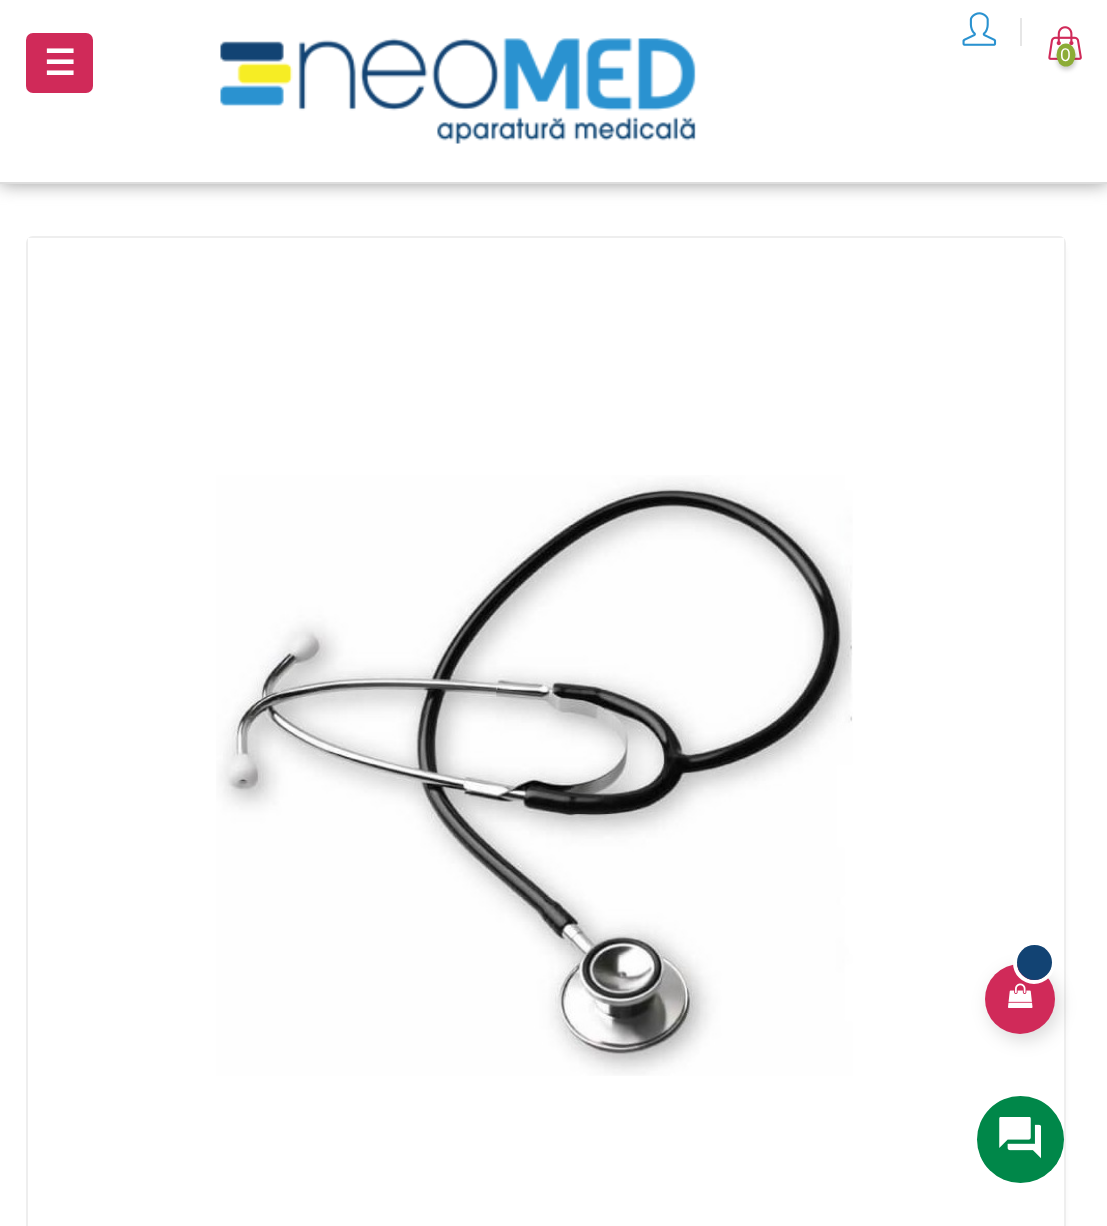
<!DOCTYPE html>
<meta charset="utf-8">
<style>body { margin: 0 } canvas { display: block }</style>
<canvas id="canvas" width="1107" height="1226"></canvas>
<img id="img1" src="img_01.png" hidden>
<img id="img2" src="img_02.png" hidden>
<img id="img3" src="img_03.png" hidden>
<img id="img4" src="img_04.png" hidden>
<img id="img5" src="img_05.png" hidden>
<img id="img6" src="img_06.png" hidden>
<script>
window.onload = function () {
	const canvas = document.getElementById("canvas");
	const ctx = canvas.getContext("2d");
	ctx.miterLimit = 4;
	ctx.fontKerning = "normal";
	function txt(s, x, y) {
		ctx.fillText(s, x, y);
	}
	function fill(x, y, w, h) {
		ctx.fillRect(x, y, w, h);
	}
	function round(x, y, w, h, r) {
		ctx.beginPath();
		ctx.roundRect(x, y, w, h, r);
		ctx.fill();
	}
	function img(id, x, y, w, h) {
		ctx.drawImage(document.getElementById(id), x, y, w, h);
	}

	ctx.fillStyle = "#FFFFFF";
	fill(0, 0, 1107, 1226);
	ctx.fillStyle = "#999999";
	ctx.filter = "blur(9px)";
	ctx.beginPath();
	ctx.rect(0, 0, 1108, 184);
	ctx.fill();
	ctx.filter = "none";
	ctx.fillStyle = "#FFFFFF";
	fill(0, 0, 1107, 182);
	ctx.fillStyle = "#DDDDDD";
	fill(0, 182, 1107, 2);
	ctx.fillStyle = "#D02A59";
	round(26, 33, 67, 60, 7);
	img("img1", 220, 38, 476, 106);
	img("img2", 962, 12, 35, 34);
	ctx.fillStyle = "#E6E6E6";
	fill(1020, 18, 2, 28);
	img("img3", 1048, 26, 34, 34);
	ctx.fillStyle = "rgba(0, 0, 0, 0.2)";
	ctx.filter = "blur(2px)";
	ctx.beginPath();
	ctx.roundRect(1057, 47, 19, 23, 9.5);
	ctx.fill();
	ctx.filter = "none";
	ctx.fillStyle = "#8CAC36";
	ctx.beginPath();
	ctx.ellipse(1066, 55, 9.5, 11.5, 0, 0, Math.PI * 2);
	ctx.fill();
	ctx.fillStyle = "#EEEEEE";
	ctx.filter = "blur(3.5px)";
	ctx.beginPath();
	ctx.roundRect(32, 247, 1032, 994, 4);
	ctx.fill();
	ctx.filter = "none";
	ctx.beginPath();
	ctx.roundRect(27, 237, 1038, 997, 6);
	ctx.strokeStyle = "#EEEEEE";
	ctx.lineWidth = 2;
	ctx.stroke();
	ctx.fillStyle = "#FFFFFF";
	fill(28, 238, 1036, 988);
	img("img4", 216, 475, 637, 601);
	ctx.fillStyle = "rgba(0, 0, 0, 0.15)";
	ctx.filter = "blur(9px)";
	ctx.beginPath();
	ctx.roundRect(989, 970, 70, 70, 35);
	ctx.fill();
	ctx.filter = "none";
	ctx.fillStyle = "#D02A59";
	ctx.beginPath();
	ctx.arc(1020, 999, 35, 0, Math.PI * 2);
	ctx.fill();
	img("img5", 1008, 983, 25, 25);
	ctx.beginPath();
	ctx.arc(1034, 963, 19, 0, Math.PI * 2);
	ctx.strokeStyle = "#FFFFFF";
	ctx.lineWidth = 4;
	ctx.stroke();
	ctx.fillStyle = "#124373";
	ctx.beginPath();
	ctx.arc(1034.5, 962.5, 17.5, 0, Math.PI * 2);
	ctx.fill();
	ctx.fillStyle = "#008749";
	ctx.beginPath();
	ctx.arc(1020.5, 1139.5, 43.5, 0, Math.PI * 2);
	ctx.fill();
	img("img6", 999, 1117, 42, 42);
	ctx.font = "bold 35px DejaVu Sans";
	ctx.fillStyle = "#FFFFFF";
	txt("☰", 44, 75);
	ctx.font = "18px Nunito";
	txt("0", 1060, 61);
};
</script>
